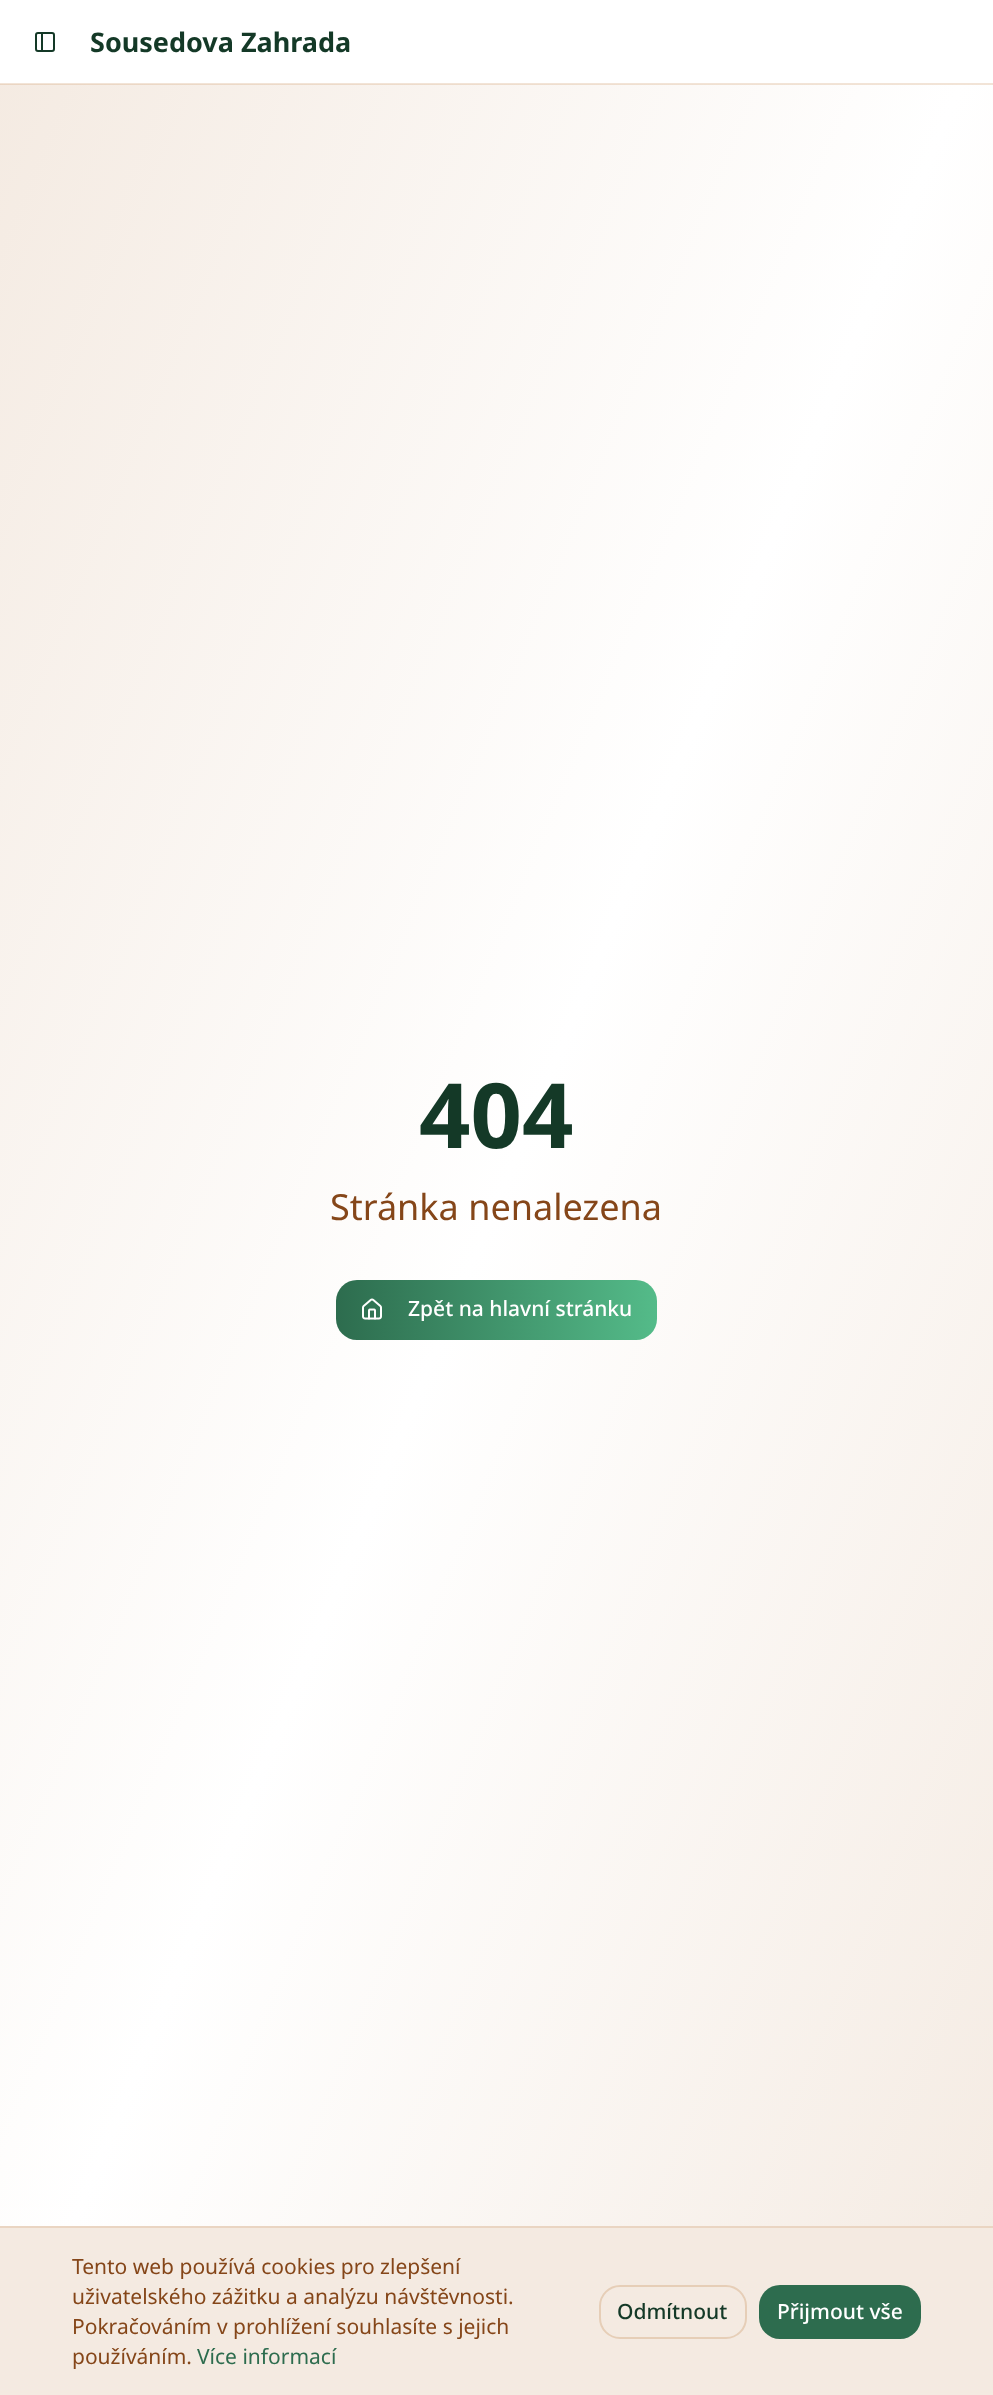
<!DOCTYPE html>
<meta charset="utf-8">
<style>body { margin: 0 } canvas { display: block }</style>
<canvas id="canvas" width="993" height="2395"></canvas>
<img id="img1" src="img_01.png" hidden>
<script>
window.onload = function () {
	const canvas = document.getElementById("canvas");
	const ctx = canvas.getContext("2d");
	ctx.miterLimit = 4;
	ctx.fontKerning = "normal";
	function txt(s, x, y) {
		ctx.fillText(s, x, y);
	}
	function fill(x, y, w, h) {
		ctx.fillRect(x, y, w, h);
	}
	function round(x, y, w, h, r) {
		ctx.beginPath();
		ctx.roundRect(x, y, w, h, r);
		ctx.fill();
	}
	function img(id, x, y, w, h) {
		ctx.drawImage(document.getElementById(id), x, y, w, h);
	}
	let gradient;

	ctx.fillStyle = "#FFFFFF";
	fill(0, 0, 993, 2395);
	ctx.fillStyle = "#F2E4D7";
	fill(0, 83, 993, 1);
	ctx.beginPath();
	ctx.roundRect(36, 33, 18, 18, 2);
	ctx.strokeStyle = "#143927";
	ctx.lineWidth = 2;
	ctx.stroke();
	ctx.beginPath();
	ctx.moveTo(42, 33);
	ctx.lineTo(42, 51);
	ctx.lineCap = "round";
	ctx.lineJoin = "round";
	ctx.stroke();
	gradient = ctx.createLinearGradient(-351, 852, 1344, 1555);
	gradient.addColorStop(0, "#F4EAE1");
	gradient.addColorStop(0.5, "#FFFFFF");
	gradient.addColorStop(1, "#F4EAE1");
	ctx.fillStyle = gradient;
	fill(0, 85, 993, 2141);
	gradient = ctx.createLinearGradient(-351, 852, 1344, 1555);
	gradient.addColorStop(0, "#EAD5C2");
	gradient.addColorStop(0.5, "#F2E4D7");
	gradient.addColorStop(1, "#EAD5C2");
	ctx.fillStyle = gradient;
	fill(0, 84, 993, 1);
	gradient = ctx.createLinearGradient(336, 1310, 657, 1310);
	gradient.addColorStop(0, "#2D6C4E");
	gradient.addColorStop(1, "#54BB89");
	ctx.fillStyle = gradient;
	round(336, 1280, 321, 60, 21);
	img("img1", 362, 1298, 20, 22);
	ctx.fillStyle = "#F4EAE1";
	fill(0, 2228, 993, 167);
	ctx.fillStyle = "#EAD5C2";
	fill(0, 2226, 993, 2);
	ctx.beginPath();
	ctx.roundRect(600, 2286, 146, 52, 20);
	ctx.strokeStyle = "#E6CEB7";
	ctx.lineJoin = "miter";
	ctx.stroke();
	ctx.fillStyle = "#2D6C4E";
	round(759, 2285, 162, 54, 21);
	ctx.font = "bold 27px Noto Sans";
	ctx.fillStyle = "#143927";
	txt("Sousedova Zahrada", 90, 52);
	ctx.font = "bold 90px Noto Sans";
	txt("404", 419, 1148);
	ctx.font = "36px Noto Sans";
	ctx.fillStyle = "#854619";
	txt("Stránka nenalezena", 330, 1220);
	ctx.font = "500 21px Noto Sans";
	ctx.fillStyle = "#FFFFFF";
	txt("Zpět na hlavní stránku", 408, 1316);
	ctx.font = "21px Noto Sans";
	ctx.fillStyle = "#854619";
	txt("Tento web používá cookies pro zlepšení", 72, 2274);
	txt("uživatelského zážitku a analýzu návštěvnosti.", 72, 2304);
	txt("Pokračováním v prohlížení souhlasíte s jejich", 72, 2334);
	txt("používáním.", 72, 2364);
	ctx.fillStyle = "#2D6C4E";
	txt("Více informací", 197, 2364);
	ctx.font = "500 21px Noto Sans";
	ctx.fillStyle = "#143927";
	txt("Odmítnout", 617, 2319);
	ctx.fillStyle = "#FFFFFF";
	txt("Přijmout vše", 777, 2319);
};
</script>
